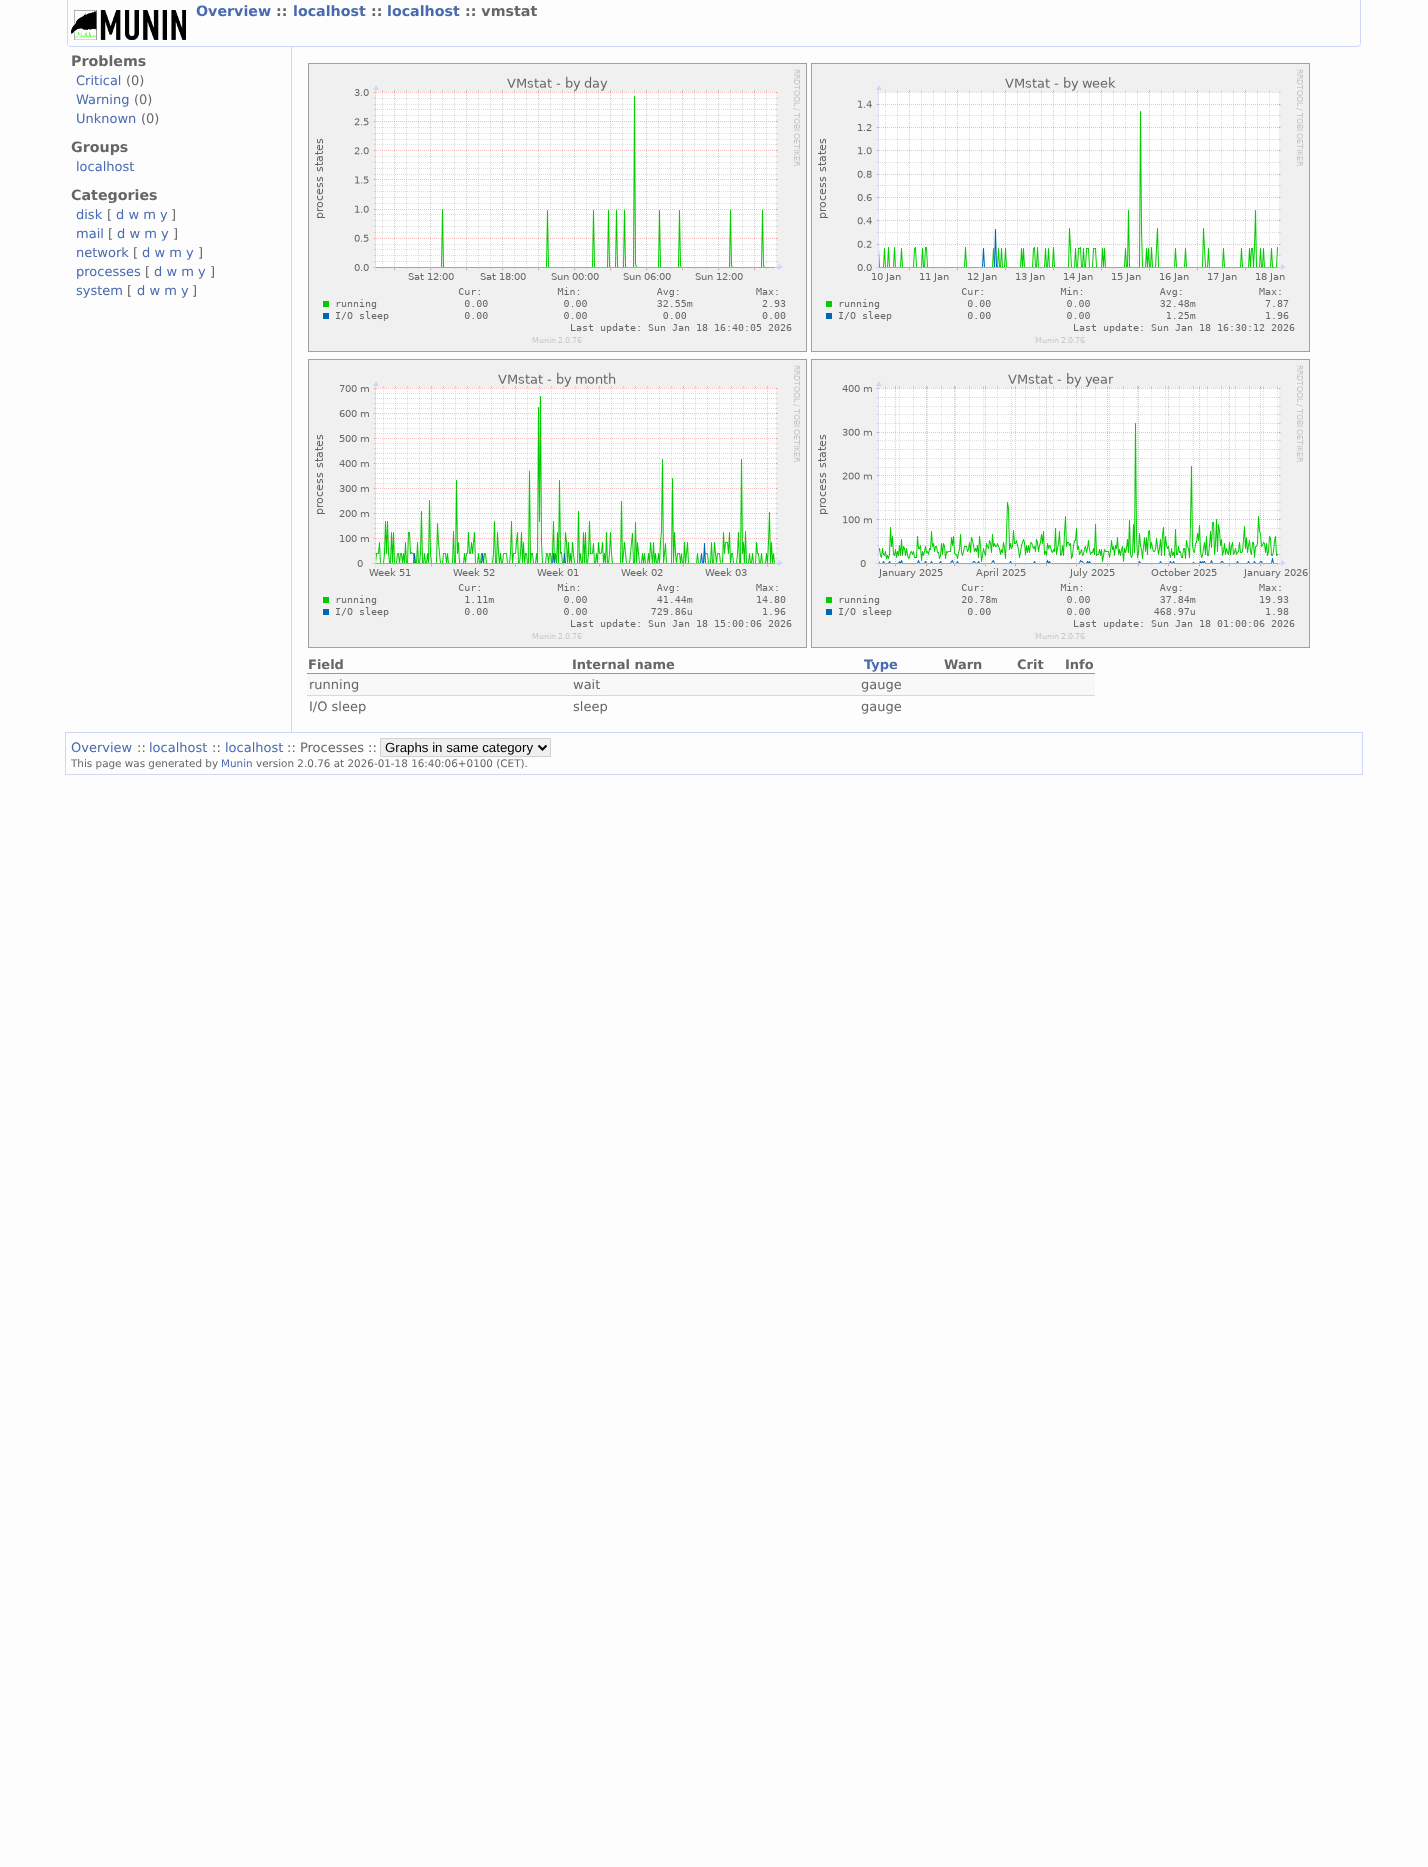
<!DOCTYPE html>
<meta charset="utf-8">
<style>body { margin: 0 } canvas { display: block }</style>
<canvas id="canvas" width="1428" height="1867"></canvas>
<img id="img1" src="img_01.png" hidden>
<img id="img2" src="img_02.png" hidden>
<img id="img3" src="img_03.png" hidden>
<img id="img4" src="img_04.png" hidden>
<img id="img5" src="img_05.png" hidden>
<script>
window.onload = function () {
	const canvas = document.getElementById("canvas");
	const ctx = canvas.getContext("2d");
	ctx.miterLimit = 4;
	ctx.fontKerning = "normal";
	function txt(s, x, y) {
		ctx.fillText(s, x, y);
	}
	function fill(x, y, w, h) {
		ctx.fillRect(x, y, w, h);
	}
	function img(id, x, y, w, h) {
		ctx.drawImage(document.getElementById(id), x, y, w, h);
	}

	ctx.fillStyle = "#FDFDFD";
	fill(0, 0, 1428, 1867);
	ctx.fillStyle = "#CFD6F8";
	ctx.beginPath();
	ctx.moveTo(67, 0);
	ctx.lineTo(1361, 0);
	ctx.lineTo(1361, 43);
	ctx.bezierCurveTo(1361, 45, 1359, 47, 1357, 47);
	ctx.lineTo(71, 47);
	ctx.bezierCurveTo(69, 47, 67, 45, 67, 43);
	ctx.closePath();
	ctx.moveTo(68, 0);
	ctx.lineTo(1360, 0);
	ctx.lineTo(1360, 43);
	ctx.bezierCurveTo(1360, 45, 1359, 46, 1357, 46);
	ctx.lineTo(71, 46);
	ctx.bezierCurveTo(69, 46, 68, 45, 68, 43);
	ctx.closePath();
	ctx.fill("evenodd");
	img("img1", 71, 10, 115, 30);
	fill(291, 47, 1, 685);
	ctx.strokeStyle = "#A0A0A0";
	ctx.strokeRect(308.5, 63.5, 498, 288);
	img("img2", 309, 64, 497, 287);
	ctx.strokeRect(811.5, 63.5, 498, 288);
	img("img3", 812, 64, 497, 287);
	ctx.strokeRect(308.5, 359.5, 498, 288);
	img("img4", 309, 360, 497, 287);
	ctx.strokeRect(811.5, 359.5, 498, 288);
	img("img5", 812, 360, 497, 287);
	ctx.fillStyle = "#999999";
	fill(307, 673, 788, 1);
	ctx.fillStyle = "#F8F8F8";
	fill(307, 674, 788, 21);
	ctx.fillStyle = "#D8D8D8";
	fill(307, 695, 788, 1);
	ctx.strokeStyle = "#CFD6F8";
	ctx.strokeRect(65.5, 732.5, 1297, 42);
	ctx.fillStyle = "#EFEFEF";
	ctx.beginPath();
	ctx.rect(380.5, 738.5, 170, 18);
	ctx.fill();
	ctx.strokeStyle = "#D1D1D1";
	ctx.stroke();
	ctx.beginPath();
	ctx.moveTo(538.5, 745.5);
	ctx.lineTo(542.5, 749.5);
	ctx.lineTo(546.5, 745.5);
	ctx.strokeStyle = "#000000";
	ctx.lineWidth = 2;
	ctx.stroke();
	ctx.font = "bold 14.25px DejaVu Sans";
	ctx.fillStyle = "#486AAF";
	txt("Overview", 196, 16);
	ctx.fillStyle = "#666666";
	txt("::", 276, 16);
	ctx.fillStyle = "#486AAF";
	txt("localhost", 293, 16);
	ctx.fillStyle = "#666666";
	txt("::", 371, 16);
	ctx.fillStyle = "#486AAF";
	txt("localhost", 387, 16);
	ctx.fillStyle = "#666666";
	txt(":: vmstat", 465, 16);
	txt("Problems", 71, 66);
	ctx.font = "13px DejaVu Sans";
	ctx.fillStyle = "#486AAF";
	txt("Critical", 76, 85);
	ctx.fillStyle = "#666666";
	txt("(0)", 126, 85);
	ctx.fillStyle = "#486AAF";
	txt("Warning", 76, 104);
	ctx.fillStyle = "#666666";
	txt("(0)", 134, 104);
	ctx.fillStyle = "#486AAF";
	txt("Unknown", 76, 123);
	ctx.fillStyle = "#666666";
	txt("(0)", 141, 123);
	ctx.font = "bold 14.25px DejaVu Sans";
	txt("Groups", 71, 152);
	ctx.font = "13px DejaVu Sans";
	ctx.fillStyle = "#486AAF";
	txt("localhost", 76, 171);
	ctx.font = "bold 14.25px DejaVu Sans";
	ctx.fillStyle = "#666666";
	txt("Categories", 71, 200);
	ctx.font = "13px DejaVu Sans";
	ctx.fillStyle = "#486AAF";
	txt("disk", 76, 219);
	ctx.fillStyle = "#666666";
	txt("[", 107, 219);
	ctx.fillStyle = "#486AAF";
	txt("d w m y", 116, 219);
	ctx.fillStyle = "#666666";
	txt("]", 171, 219);
	ctx.fillStyle = "#486AAF";
	txt("mail", 76, 238);
	ctx.fillStyle = "#666666";
	txt("[", 108, 238);
	ctx.fillStyle = "#486AAF";
	txt("d w m y", 117, 238);
	ctx.fillStyle = "#666666";
	txt("]", 173, 238);
	ctx.fillStyle = "#486AAF";
	txt("network", 76, 257);
	ctx.fillStyle = "#666666";
	txt("[", 133, 257);
	ctx.fillStyle = "#486AAF";
	txt("d w m y", 142, 257);
	ctx.fillStyle = "#666666";
	txt("]", 198, 257);
	ctx.fillStyle = "#486AAF";
	txt("processes", 76, 276);
	ctx.fillStyle = "#666666";
	txt("[", 145, 276);
	ctx.fillStyle = "#486AAF";
	txt("d w m y", 154, 276);
	ctx.fillStyle = "#666666";
	txt("]", 210, 276);
	ctx.fillStyle = "#486AAF";
	txt("system", 76, 295);
	ctx.fillStyle = "#666666";
	txt("[", 127, 295);
	ctx.fillStyle = "#486AAF";
	txt("d w m y", 137, 295);
	ctx.fillStyle = "#666666";
	txt("]", 192, 295);
	ctx.font = "bold 13px DejaVu Sans";
	txt("Field", 308, 669);
	txt("Internal name", 572, 669);
	ctx.fillStyle = "#486AAF";
	txt("Type", 864, 669);
	ctx.fillStyle = "#666666";
	txt("Warn", 944, 669);
	txt("Crit", 1017, 669);
	txt("Info", 1065, 669);
	ctx.font = "13px DejaVu Sans";
	txt("running", 309, 689);
	txt("wait", 573, 689);
	txt("gauge", 861, 689);
	txt("I/O sleep", 309, 711);
	txt("sleep", 573, 711);
	txt("gauge", 861, 711);
	ctx.fillStyle = "#486AAF";
	txt("Overview", 71, 752);
	ctx.fillStyle = "#666666";
	txt("::", 137, 752);
	ctx.fillStyle = "#486AAF";
	txt("localhost", 149, 752);
	ctx.fillStyle = "#666666";
	txt("::", 212, 752);
	ctx.fillStyle = "#486AAF";
	txt("localhost", 225, 752);
	ctx.fillStyle = "#666666";
	txt(":: Processes ::", 287, 752);
	ctx.font = "13.25px Liberation Sans";
	ctx.fillStyle = "#000000";
	txt("Graphs in same category", 385, 752);
	ctx.font = "10.4px DejaVu Sans";
	ctx.fillStyle = "#666666";
	txt("This page was generated by", 71, 767);
	ctx.fillStyle = "#486AAF";
	txt("Munin", 221, 767);
	ctx.fillStyle = "#666666";
	txt("version 2.0.76 at 2026-01-18 16:40:06+0100 (CET).", 256, 767);
};
</script>
